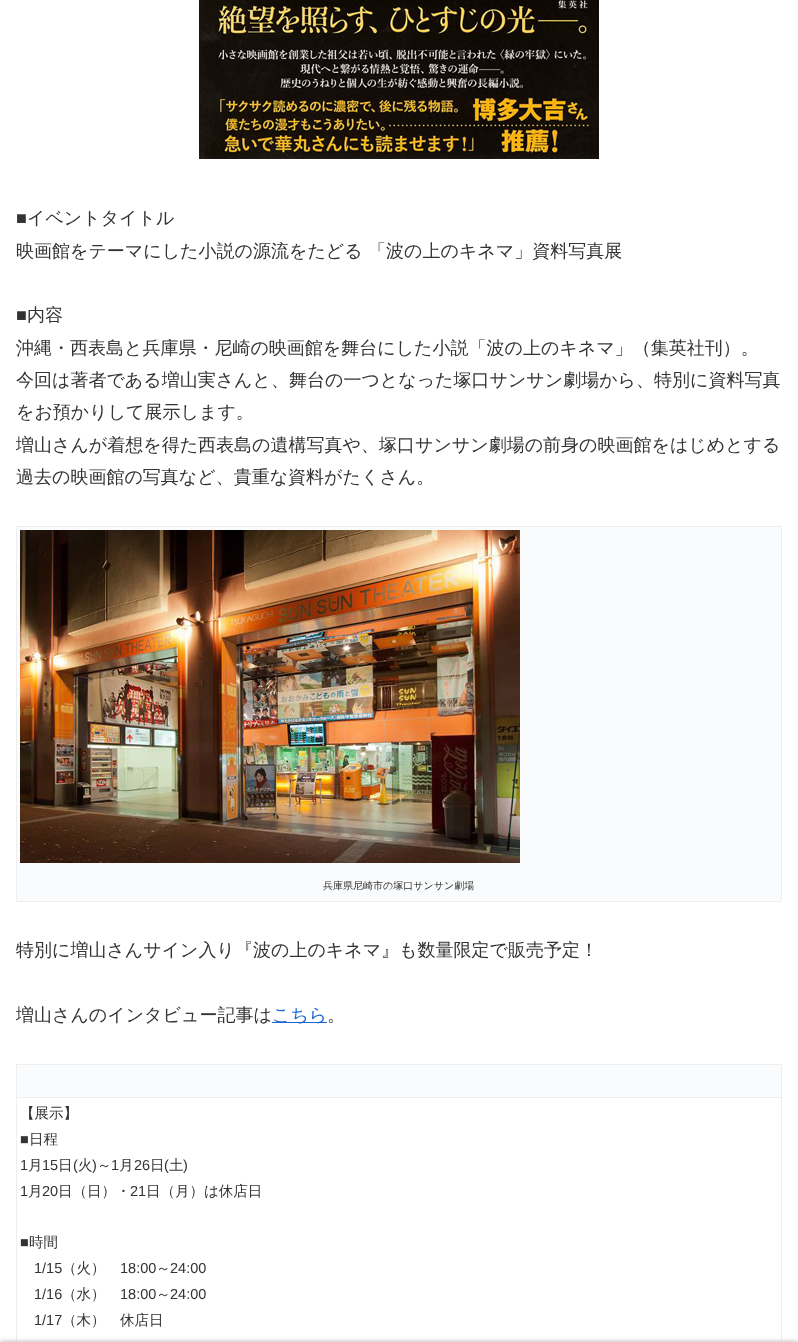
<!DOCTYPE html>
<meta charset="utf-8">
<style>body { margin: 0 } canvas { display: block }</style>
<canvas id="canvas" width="798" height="1342"></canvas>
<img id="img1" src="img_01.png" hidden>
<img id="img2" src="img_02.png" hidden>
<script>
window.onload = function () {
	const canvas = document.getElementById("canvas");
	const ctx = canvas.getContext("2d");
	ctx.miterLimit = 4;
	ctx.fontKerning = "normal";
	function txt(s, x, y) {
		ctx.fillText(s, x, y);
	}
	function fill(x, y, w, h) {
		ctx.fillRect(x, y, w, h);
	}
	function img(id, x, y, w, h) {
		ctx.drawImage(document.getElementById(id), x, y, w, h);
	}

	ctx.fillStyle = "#FFFFFF";
	fill(0, 0, 798, 1342);
	img("img1", 199, 0, 400, 159);
	ctx.fillStyle = "#FAFBFC";
	fill(17, 527, 764, 374);
	ctx.fillStyle = "#EEEEEE";
	fill(16, 526, 766, 1);
	fill(781, 526, 1, 376);
	fill(16, 901, 766, 1);
	fill(16, 526, 1, 376);
	img("img2", 20, 530, 500, 333);
	ctx.fillStyle = "#1967D2";
	fill(272, 1022, 55, 1);
	ctx.fillStyle = "#FAFBFC";
	fill(17, 1065, 764, 32);
	ctx.fillStyle = "#EEEEEE";
	fill(16, 1064, 766, 1);
	fill(16, 1097, 766, 1);
	fill(781, 1097, 1, 245);
	fill(781, 1064, 1, 34);
	fill(16, 1097, 1, 245);
	fill(16, 1064, 1, 34);
	ctx.fillStyle = "#A9A9A9";
	ctx.filter = "blur(2.5px)";
	ctx.beginPath();
	ctx.rect(0, 1342, 798, 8);
	ctx.fill();
	ctx.filter = "none";
	ctx.font = "18px Liberation Sans";
	ctx.fillStyle = "#333333";
	txt("■", 16, 224);
	ctx.font = "500 18px WenQuanYi Zen Hei";
	txt("イベントタイトル", 27, 224);
	txt("映画館をテーマにした小説の源流をたどる 「波の上のキネマ」資料写真展", 16, 257);
	ctx.font = "18px Liberation Sans";
	txt("■", 16, 321);
	ctx.font = "500 18px WenQuanYi Zen Hei";
	txt("内容", 27, 321);
	txt("沖縄・西表島と兵庫県・尼崎の映画館を舞台にした小説「波の上のキネマ」（集英社刊）。", 16, 354);
	txt("今回は著者である増山実さんと、舞台の一つとなった塚口サンサン劇場から、特別に資料写真", 16, 386);
	txt("をお預かりして展示します。", 16, 418);
	txt("増山さんが着想を得た西表島の遺構写真や、塚口サンサン劇場の前身の映画館をはじめとする", 16, 451);
	txt("過去の映画館の写真など、貴重な資料がたくさん。", 16, 483);
	ctx.font = "500 10px WenQuanYi Zen Hei";
	txt("兵庫県尼崎市の塚口サンサン劇場", 323, 889);
	ctx.font = "500 18px WenQuanYi Zen Hei";
	txt("特別に増山さんサイン入り『波の上のキネマ』も数量限定で販売予定！", 16, 956);
	txt("増山さんのインタビュー記事は", 16, 1021);
	ctx.fillStyle = "#1967D2";
	txt("こちら", 272, 1021);
	ctx.fillStyle = "#333333";
	txt("。", 327, 1021);
	ctx.font = "500 14.5px WenQuanYi Zen Hei";
	txt("【展示】", 20, 1118);
	ctx.font = "14.5px Liberation Sans";
	txt("■", 20, 1144);
	ctx.font = "500 14.5px WenQuanYi Zen Hei";
	txt("日程", 29, 1144);
	ctx.font = "14.5px Liberation Sans";
	txt("1", 20, 1170);
	ctx.font = "500 14.5px WenQuanYi Zen Hei";
	txt("月", 28, 1170);
	ctx.font = "14.5px Liberation Sans";
	txt("15", 42, 1170);
	ctx.font = "500 14.5px WenQuanYi Zen Hei";
	txt("日", 58, 1170);
	ctx.font = "14.5px Liberation Sans";
	txt("(", 73, 1170);
	ctx.font = "500 14.5px WenQuanYi Zen Hei";
	txt("火", 78, 1170);
	ctx.font = "14.5px Liberation Sans";
	txt(")", 92, 1170);
	ctx.font = "500 14.5px WenQuanYi Zen Hei";
	txt("～", 97, 1170);
	ctx.font = "14.5px Liberation Sans";
	txt("1", 111, 1170);
	ctx.font = "500 14.5px WenQuanYi Zen Hei";
	txt("月", 119, 1170);
	ctx.font = "14.5px Liberation Sans";
	txt("26", 134, 1170);
	ctx.font = "500 14.5px WenQuanYi Zen Hei";
	txt("日", 150, 1170);
	ctx.font = "14.5px Liberation Sans";
	txt("(", 164, 1170);
	ctx.font = "500 14.5px WenQuanYi Zen Hei";
	txt("土", 169, 1170);
	ctx.font = "14.5px Liberation Sans";
	txt(")", 183, 1170);
	txt("1", 20, 1196);
	ctx.font = "500 14.5px WenQuanYi Zen Hei";
	txt("月", 28, 1196);
	ctx.font = "14.5px Liberation Sans";
	txt("20", 42, 1196);
	ctx.font = "500 14.5px WenQuanYi Zen Hei";
	txt("日（日）・", 58, 1196);
	ctx.font = "14.5px Liberation Sans";
	txt("21", 130, 1196);
	ctx.font = "500 14.5px WenQuanYi Zen Hei";
	txt("日（月）は休店日", 146, 1196);
	ctx.font = "14.5px Liberation Sans";
	txt("■", 20, 1247);
	ctx.font = "500 14.5px WenQuanYi Zen Hei";
	txt("時間", 29, 1247);
	ctx.font = "14.5px Liberation Sans";
	txt("1/15", 34, 1273);
	ctx.font = "500 14.5px WenQuanYi Zen Hei";
	txt("（火）", 62, 1273);
	ctx.font = "14.5px Liberation Sans";
	txt("18:00", 120, 1273);
	ctx.font = "500 14.5px WenQuanYi Zen Hei";
	txt("～", 156, 1273);
	ctx.font = "14.5px Liberation Sans";
	txt("24:00", 170, 1273);
	txt("1/16", 34, 1299);
	ctx.font = "500 14.5px WenQuanYi Zen Hei";
	txt("（水）", 62, 1299);
	ctx.font = "14.5px Liberation Sans";
	txt("18:00", 120, 1299);
	ctx.font = "500 14.5px WenQuanYi Zen Hei";
	txt("～", 156, 1299);
	ctx.font = "14.5px Liberation Sans";
	txt("24:00", 170, 1299);
	txt("1/17", 34, 1325);
	ctx.font = "500 14.5px WenQuanYi Zen Hei";
	txt("（木）　休店日", 62, 1325);
};
</script>
